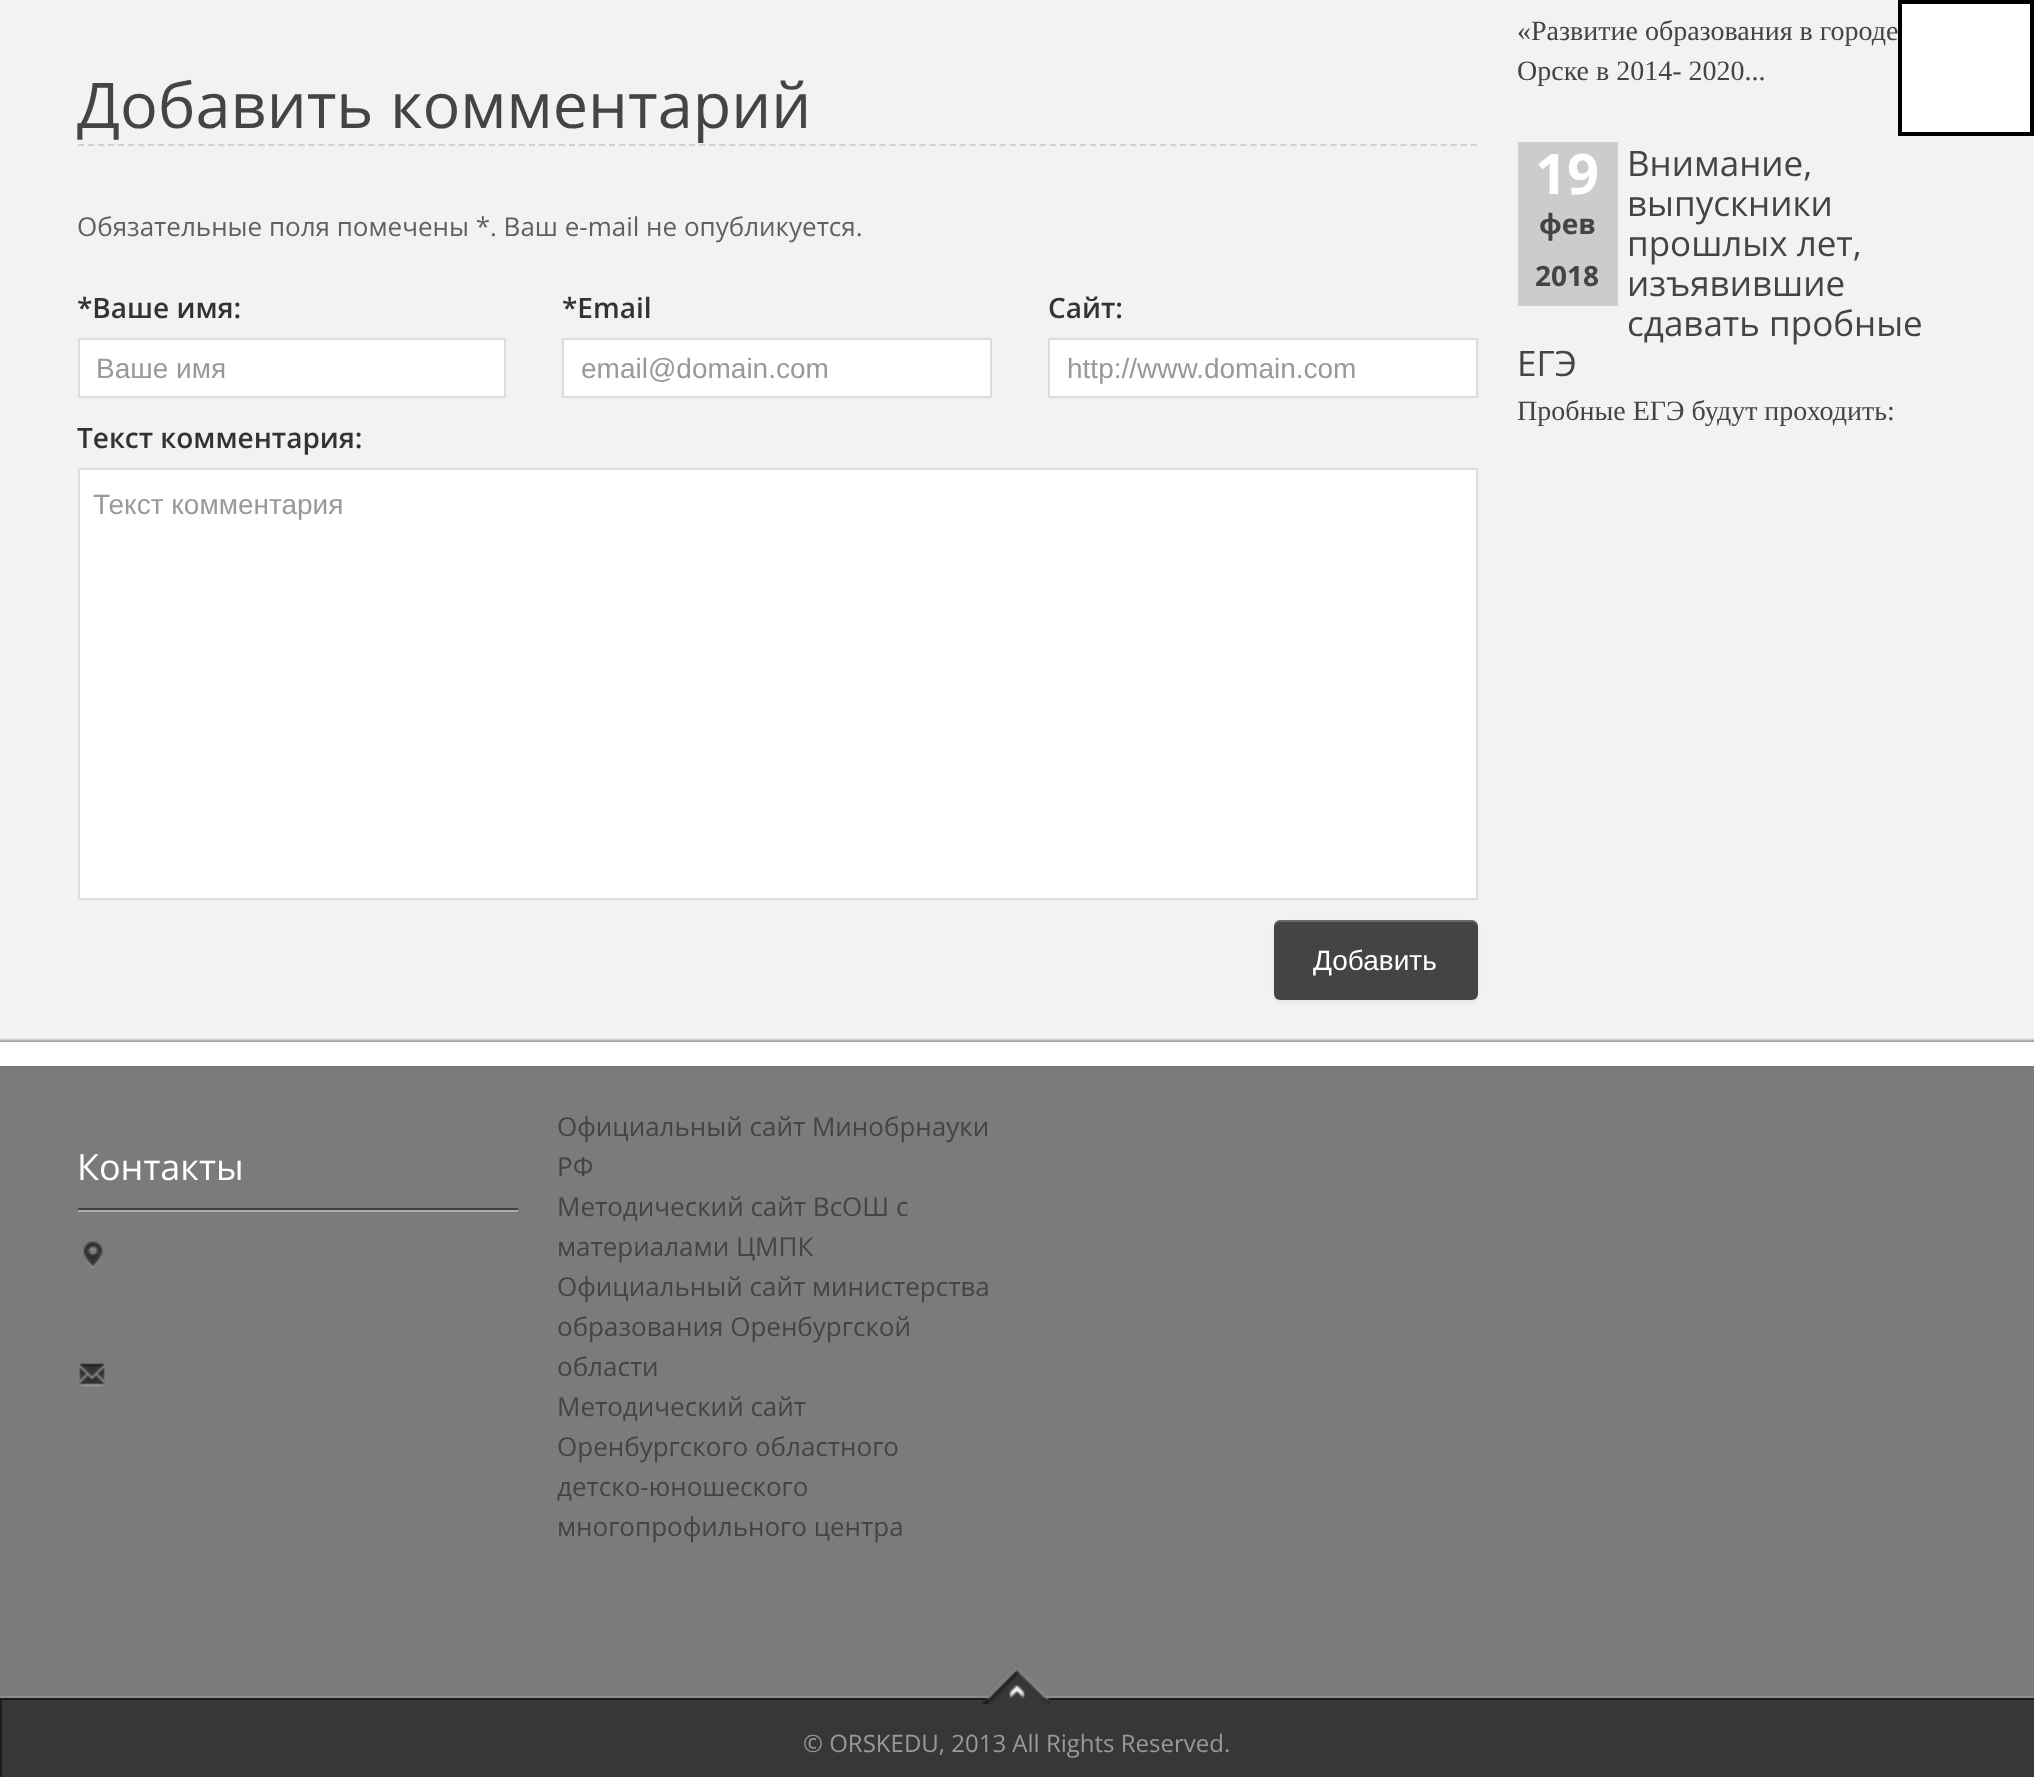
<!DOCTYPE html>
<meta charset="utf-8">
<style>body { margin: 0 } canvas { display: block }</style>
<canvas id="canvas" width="2034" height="1777"></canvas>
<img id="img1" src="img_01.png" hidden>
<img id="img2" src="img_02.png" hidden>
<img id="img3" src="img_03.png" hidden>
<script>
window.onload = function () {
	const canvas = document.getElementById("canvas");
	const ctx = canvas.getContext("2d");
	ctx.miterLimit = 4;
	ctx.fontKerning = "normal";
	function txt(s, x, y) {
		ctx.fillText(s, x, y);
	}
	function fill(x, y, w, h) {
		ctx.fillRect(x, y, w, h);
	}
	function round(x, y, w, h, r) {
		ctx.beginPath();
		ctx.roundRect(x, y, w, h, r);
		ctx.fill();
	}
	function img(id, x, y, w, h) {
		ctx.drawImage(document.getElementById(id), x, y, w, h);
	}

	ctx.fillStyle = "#F2F2F1";
	fill(0, 0, 2034, 1777);
	ctx.beginPath();
	ctx.moveTo(78, 145);
	ctx.lineTo(1478, 145);
	ctx.strokeStyle = "#D1D1D1";
	ctx.lineWidth = 2;
	ctx.setLineDash([6, 4.02]);
	ctx.stroke();
	ctx.fillStyle = "#FFFFFF";
	ctx.beginPath();
	ctx.rect(79, 339, 426, 58);
	ctx.fill();
	ctx.strokeStyle = "#DDDDDD";
	ctx.setLineDash([]);
	ctx.stroke();
	ctx.beginPath();
	ctx.rect(563, 339, 428, 58);
	ctx.fill();
	ctx.stroke();
	ctx.beginPath();
	ctx.rect(1049, 339, 428, 58);
	ctx.fill();
	ctx.stroke();
	ctx.beginPath();
	ctx.rect(79, 469, 1398, 430);
	ctx.fill();
	ctx.stroke();
	ctx.fillStyle = "rgba(0, 0, 0, 0.05)";
	ctx.filter = "blur(2px)";
	ctx.beginPath();
	ctx.roundRect(1274, 922, 204, 80, 6);
	ctx.fill();
	ctx.filter = "none";
	ctx.fillStyle = "#444444";
	round(1274, 920, 204, 80, 6);
	ctx.fillStyle = "rgba(255, 255, 255, 0.2)";
	ctx.beginPath();
	ctx.moveTo(1280, 922);
	ctx.lineTo(1472, 922);
	ctx.bezierCurveTo(1475, 922, 1478, 925, 1478, 928);
	ctx.lineTo(1478, 926);
	ctx.bezierCurveTo(1478, 923, 1475, 920, 1472, 920);
	ctx.lineTo(1280, 920);
	ctx.bezierCurveTo(1277, 920, 1274, 923, 1274, 926);
	ctx.lineTo(1274, 928);
	ctx.bezierCurveTo(1274, 925, 1277, 922, 1280, 922);
	ctx.closePath();
	ctx.fill();
	ctx.fillStyle = "#CCCCCC";
	fill(1518, 142, 100, 164);
	ctx.fillStyle = "#FFFFFF";
	ctx.beginPath();
	ctx.rect(1900, 2, 132, 132);
	ctx.fill();
	ctx.strokeStyle = "#000000";
	ctx.lineWidth = 4;
	ctx.stroke();
	ctx.fillStyle = "rgba(0, 0, 0, 0.2)";
	ctx.filter = "blur(1px)";
	ctx.beginPath();
	ctx.rect(-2, 1040, 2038, 658);
	ctx.fill();
	ctx.filter = "none";
	ctx.filter = "blur(1px)";
	ctx.beginPath();
	ctx.rect(-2, 1040, 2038, 658);
	ctx.fill();
	ctx.filter = "none";
	ctx.fillStyle = "#7B7B7B";
	fill(0, 1066, 2034, 630);
	ctx.fillStyle = "#FFFFFF";
	fill(0, 1042, 2034, 24);
	ctx.fillStyle = "#ADADAD";
	fill(78, 1210, 440, 2);
	ctx.fillStyle = "#404040";
	fill(78, 1208, 440, 2);
	img("img1", 83, 1241, 20, 27);
	img("img2", 79, 1363, 26, 24);
	ctx.fillStyle = "#373737";
	fill(2, 1700, 2032, 77);
	ctx.save();
	ctx.beginPath();
	ctx.rect(0, 1698, 2034, 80);
	ctx.clip();
	ctx.fillStyle = "#1C1C1C";
	ctx.beginPath();
	ctx.moveTo(-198, 1500);
	ctx.lineTo(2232, 1500);
	ctx.lineTo(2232, 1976);
	ctx.lineTo(-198, 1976);
	ctx.closePath();
	ctx.moveTo(2, 1700);
	ctx.lineTo(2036, 1700);
	ctx.lineTo(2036, 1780);
	ctx.lineTo(2, 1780);
	ctx.closePath();
	ctx.fill("evenodd");
	ctx.restore();
	ctx.fillStyle = "#8A8E8D";
	fill(0, 1696, 2034, 2);
	img("img3", 982, 1668, 69, 36);
	ctx.font = "63px Open Sans";
	ctx.fillStyle = "#444444";
	txt("Добавить комментарий", 77, 128);
	ctx.font = "26px Open Sans";
	ctx.fillStyle = "#5D6166";
	txt("Обязательные поля помечены *. Ваш e-mail не опубликуется.", 77, 236);
	ctx.font = "600 28px Open Sans";
	ctx.fillStyle = "#333333";
	txt("*Ваше имя:", 77, 318);
	ctx.font = "28px Liberation Sans";
	ctx.fillStyle = "#999999";
	txt("Ваше имя", 96, 378);
	ctx.font = "600 28px Open Sans";
	ctx.fillStyle = "#333333";
	txt("*Email", 562, 318);
	ctx.font = "28px Liberation Sans";
	ctx.fillStyle = "#999999";
	txt("email@domain.com", 581, 378);
	ctx.font = "600 28px Open Sans";
	ctx.fillStyle = "#333333";
	txt("Сайт:", 1048, 318);
	ctx.font = "28px Liberation Sans";
	ctx.fillStyle = "#999999";
	txt("http://www.domain.com", 1067, 378);
	ctx.font = "600 28px Open Sans";
	ctx.fillStyle = "#333333";
	txt("Текст комментария:", 77, 448);
	ctx.font = "28px Liberation Sans";
	ctx.fillStyle = "#999999";
	txt("Текст комментария", 93, 514);
	ctx.fillStyle = "#FFFFFF";
	txt("Добавить", 1313, 970);
	ctx.font = "28px Liberation Serif";
	ctx.fillStyle = "#444444";
	txt("«Развитие образования в городе", 1517, 40);
	txt("Орске в 2014- 2020...", 1517, 80);
	ctx.font = "35px Open Sans";
	txt("Внимание,", 1627, 176);
	txt("выпускники", 1627, 216);
	txt("прошлых лет,", 1627, 256);
	txt("изъявившие", 1627, 296);
	txt("сдавать пробные", 1627, 336);
	txt("ЕГЭ", 1517, 376);
	ctx.font = "bold 56px Open Sans";
	ctx.fillStyle = "#FFFFFF";
	txt("19", 1535, 194);
	ctx.font = "bold 28px Open Sans";
	ctx.fillStyle = "#444444";
	txt("фев", 1539, 234);
	txt("2018", 1535, 286);
	ctx.save();
	ctx.beginPath();
	ctx.rect(1518, 142, 440, 290);
	ctx.clip();
	ctx.font = "28px Liberation Serif";
	txt("Пробные ЕГЭ будут проходить:", 1517, 420);
	ctx.restore();
	ctx.font = "36px Open Sans";
	ctx.fillStyle = "#FFFFFF";
	txt("Контакты", 77, 1180);
	ctx.font = "26px Open Sans";
	ctx.fillStyle = "#444444";
	txt("Официальный сайт Минобрнауки", 557, 1136);
	txt("РФ", 557, 1176);
	txt("Методический сайт ВсОШ с", 557, 1216);
	txt("материалами ЦМПК", 557, 1256);
	txt("Официальный сайт министерства", 557, 1296);
	txt("образования Оренбургской", 557, 1336);
	txt("области", 557, 1376);
	txt("Методический сайт", 557, 1416);
	txt("Оренбургского областного", 557, 1456);
	txt("детско-юношеского", 557, 1496);
	txt("многопрофильного центра", 557, 1536);
	ctx.font = "24px Open Sans";
	ctx.fillStyle = "#999999";
	txt("© ORSKEDU, 2013 All Rights Reserved.", 803, 1752);
};
</script>
